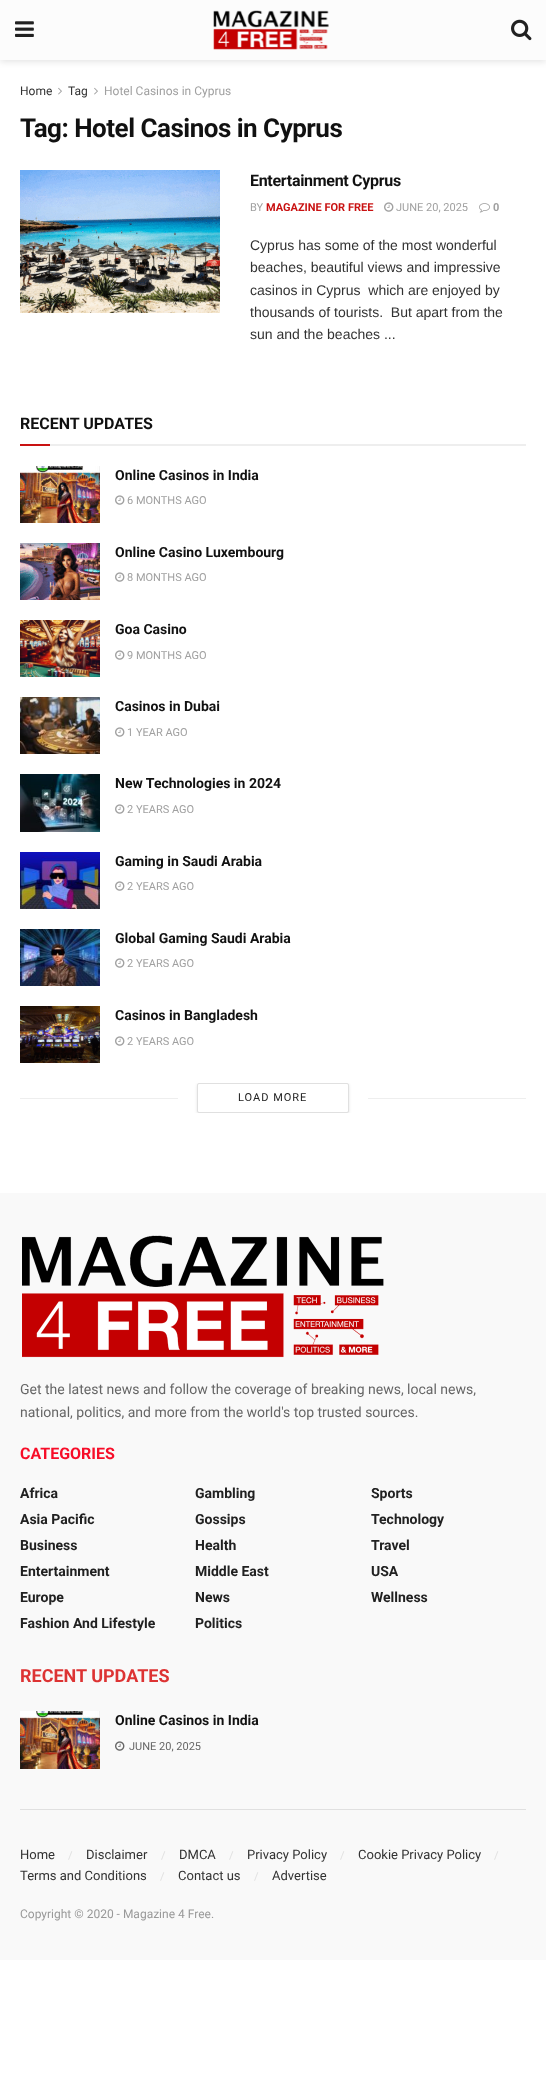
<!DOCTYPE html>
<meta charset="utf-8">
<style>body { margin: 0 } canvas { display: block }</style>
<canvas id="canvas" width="546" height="2093"></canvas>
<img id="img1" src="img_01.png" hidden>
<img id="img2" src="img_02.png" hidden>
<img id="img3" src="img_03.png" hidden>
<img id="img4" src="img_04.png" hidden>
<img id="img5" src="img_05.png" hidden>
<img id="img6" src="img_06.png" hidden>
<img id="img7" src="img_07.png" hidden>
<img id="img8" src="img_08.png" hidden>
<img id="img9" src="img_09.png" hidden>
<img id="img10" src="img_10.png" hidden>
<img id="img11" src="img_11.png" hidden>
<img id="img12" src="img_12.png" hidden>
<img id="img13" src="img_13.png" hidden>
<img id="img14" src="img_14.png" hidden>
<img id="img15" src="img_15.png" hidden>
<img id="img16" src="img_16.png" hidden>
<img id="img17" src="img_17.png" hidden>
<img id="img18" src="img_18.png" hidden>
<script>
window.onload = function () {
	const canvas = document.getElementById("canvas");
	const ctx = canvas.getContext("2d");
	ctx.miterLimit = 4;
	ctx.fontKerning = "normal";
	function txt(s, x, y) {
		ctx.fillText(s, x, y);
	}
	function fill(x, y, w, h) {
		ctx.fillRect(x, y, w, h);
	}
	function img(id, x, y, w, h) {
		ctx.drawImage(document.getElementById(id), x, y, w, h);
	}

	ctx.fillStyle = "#FFFFFF";
	fill(0, 0, 546, 2093);
	ctx.fillStyle = "rgba(0, 0, 0, 0.1)";
	ctx.filter = "blur(3px)";
	ctx.beginPath();
	ctx.rect(0, 2, 546, 60);
	ctx.fill();
	ctx.filter = "none";
	ctx.fillStyle = "#FCFCFC";
	fill(0, 0, 546, 60);
	img("img1", 15, 21, 19, 16);
	img("img2", 213, 10, 116, 40);
	img("img3", 511, 19, 21, 22);
	img("img4", 58, 87, 4, 8);
	img("img4", 94, 87, 4, 8);
	img("img5", 20, 170, 200, 143);
	img("img6", 384, 202, 10, 10);
	img("img7", 479, 203, 11, 10);
	ctx.fillStyle = "#EEEEEE";
	fill(50, 444, 476, 2);
	ctx.fillStyle = "#C91212";
	fill(20, 444, 30, 2);
	img("img8", 20, 466, 80, 57);
	img("img6", 115, 495, 10, 10);
	img("img9", 20, 543, 80, 57);
	img("img6", 115, 572, 10, 10);
	img("img10", 20, 620, 80, 57);
	img("img6", 115, 650, 10, 10);
	img("img11", 20, 697, 80, 57);
	img("img6", 115, 727, 10, 10);
	img("img12", 20, 774, 80, 58);
	img("img6", 115, 804, 10, 10);
	img("img13", 20, 852, 80, 57);
	img("img6", 115, 881, 10, 10);
	img("img14", 20, 929, 80, 57);
	img("img6", 115, 958, 10, 10);
	img("img15", 20, 1006, 80, 57);
	img("img6", 115, 1036, 10, 10);
	ctx.save();
	ctx.beginPath();
	ctx.rect(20, 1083, 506, 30);
	ctx.clip();
	ctx.fillStyle = "rgba(0, 0, 0, 0.1)";
	ctx.filter = "blur(1.5px)";
	ctx.beginPath();
	ctx.roundRect(197, 1084, 152, 30, 2);
	ctx.fill();
	ctx.filter = "none";
	ctx.restore();
	ctx.fillStyle = "#FFFFFF";
	ctx.beginPath();
	ctx.roundRect(197.5, 1083.5, 151, 29, 1.5);
	ctx.fill();
	ctx.strokeStyle = "#E0E0E0";
	ctx.stroke();
	ctx.fillStyle = "#EEEEEE";
	fill(20, 1098, 158, 1);
	fill(368, 1098, 158, 1);
	ctx.fillStyle = "#F9F9F9";
	fill(0, 1193, 546, 767);
	img("img16", 22, 1235, 362, 123);
	img("img17", 20, 1711, 80, 58);
	img("img18", 115, 1741, 10, 10);
	ctx.fillStyle = "#E0E0E0";
	fill(20, 1809, 506, 1);
	ctx.font = "12px Roboto";
	ctx.fillStyle = "#323232";
	txt("Home", 20, 95);
	txt("Tag", 68, 95);
	ctx.fillStyle = "#A0A0A0";
	txt("Hotel Casinos in Cyprus", 104, 95);
	ctx.letterSpacing = "-0.5px";
	ctx.font = "bold 26px Roboto";
	ctx.fillStyle = "#111111";
	txt("Tag: Hotel Casinos in Cyprus", 20, 137);
	ctx.letterSpacing = "-0.3px";
	ctx.font = "bold 16px Roboto";
	txt("Entertainment Cyprus", 250, 186);
	ctx.letterSpacing = "0px";
	ctx.font = "11px Roboto";
	ctx.fillStyle = "#A0A0A0";
	txt("BY", 250, 211);
	ctx.font = "bold 11px Roboto";
	ctx.fillStyle = "#C91212";
	txt("MAGAZINE FOR FREE", 266, 211);
	ctx.font = "11px Roboto";
	ctx.fillStyle = "#A0A0A0";
	txt("JUNE 20, 2025", 396, 211);
	ctx.font = "bold 11px Roboto";
	txt("0", 493, 211);
	ctx.font = "14px Liberation Sans";
	ctx.fillStyle = "#323232";
	txt("Cyprus has some of the most wonderful", 250, 250);
	txt("beaches, beautiful views and impressive", 250, 272);
	txt("casinos in Cyprus  which are enjoyed by", 250, 295);
	txt("thousands of tourists.  But apart from the", 250, 317);
	txt("sun and the beaches ...", 250, 339);
	ctx.font = "bold 16px Roboto";
	ctx.fillStyle = "#111111";
	txt("RECENT UPDATES", 20, 429);
	ctx.font = "bold 14px Roboto";
	txt("Online Casinos in India", 115, 480);
	ctx.font = "11px Roboto";
	ctx.fillStyle = "#A0A0A0";
	txt("6 MONTHS AGO", 127, 504);
	ctx.font = "bold 14px Roboto";
	ctx.fillStyle = "#111111";
	txt("Online Casino Luxembourg", 115, 557);
	ctx.font = "11px Roboto";
	ctx.fillStyle = "#A0A0A0";
	txt("8 MONTHS AGO", 127, 581);
	ctx.font = "bold 14px Roboto";
	ctx.fillStyle = "#111111";
	txt("Goa Casino", 115, 634);
	ctx.font = "11px Roboto";
	ctx.fillStyle = "#A0A0A0";
	txt("9 MONTHS AGO", 127, 659);
	ctx.font = "bold 14px Roboto";
	ctx.fillStyle = "#111111";
	txt("Casinos in Dubai", 115, 711);
	ctx.font = "11px Roboto";
	ctx.fillStyle = "#A0A0A0";
	txt("1 YEAR AGO", 127, 736);
	ctx.font = "bold 14px Roboto";
	ctx.fillStyle = "#111111";
	txt("New Technologies in 2024", 115, 788);
	ctx.font = "11px Roboto";
	ctx.fillStyle = "#A0A0A0";
	txt("2 YEARS AGO", 127, 813);
	ctx.font = "bold 14px Roboto";
	ctx.fillStyle = "#111111";
	txt("Gaming in Saudi Arabia", 115, 866);
	ctx.font = "11px Roboto";
	ctx.fillStyle = "#A0A0A0";
	txt("2 YEARS AGO", 127, 890);
	ctx.font = "bold 14px Roboto";
	ctx.fillStyle = "#111111";
	txt("Global Gaming Saudi Arabia", 115, 943);
	ctx.font = "11px Roboto";
	ctx.fillStyle = "#A0A0A0";
	txt("2 YEARS AGO", 127, 967);
	ctx.font = "bold 14px Roboto";
	ctx.fillStyle = "#111111";
	txt("Casinos in Bangladesh", 115, 1020);
	ctx.font = "11px Roboto";
	ctx.fillStyle = "#A0A0A0";
	txt("2 YEARS AGO", 127, 1045);
	ctx.letterSpacing = "1px";
	ctx.fillStyle = "#212121";
	txt("LOAD MORE", 238, 1101);
	ctx.letterSpacing = "0px";
	ctx.font = "14px Roboto";
	ctx.fillStyle = "#666666";
	txt("Get the latest news and follow the coverage of breaking news, local news,", 20, 1394);
	txt("national, politics, and more from the world's top trusted sources.", 20, 1417);
	ctx.font = "bold 16px Roboto";
	ctx.fillStyle = "#F70D28";
	txt("CATEGORIES", 20, 1459);
	ctx.font = "bold 14px Roboto";
	ctx.fillStyle = "#212121";
	txt("Africa", 20, 1498);
	txt("Gambling", 195, 1498);
	txt("Sports", 371, 1498);
	txt("Asia Pacific", 20, 1524);
	txt("Gossips", 195, 1524);
	txt("Technology", 371, 1524);
	txt("Business", 20, 1550);
	txt("Health", 195, 1550);
	txt("Travel", 371, 1550);
	txt("Entertainment", 20, 1576);
	txt("Middle East", 195, 1576);
	txt("USA", 371, 1576);
	txt("Europe", 20, 1602);
	txt("News", 195, 1602);
	txt("Wellness", 371, 1602);
	txt("Fashion And Lifestyle", 20, 1628);
	txt("Politics", 195, 1628);
	ctx.font = "bold 18px Roboto";
	ctx.fillStyle = "#DD3333";
	txt("RECENT UPDATES", 20, 1682);
	ctx.font = "bold 14px Roboto";
	ctx.fillStyle = "#111111";
	txt("Online Casinos in India", 115, 1725);
	ctx.font = "11px Roboto";
	ctx.fillStyle = "#666666";
	txt("JUNE 20, 2025", 129, 1750);
	ctx.font = "13px Roboto";
	ctx.fillStyle = "#323232";
	txt("Home", 20, 1859);
	ctx.font = "11px Roboto";
	ctx.fillStyle = "#E0E0E0";
	txt("/", 68, 1859);
	ctx.font = "13px Roboto";
	ctx.fillStyle = "#323232";
	txt("Disclaimer", 86, 1859);
	ctx.font = "11px Roboto";
	ctx.fillStyle = "#E0E0E0";
	txt("/", 161, 1859);
	ctx.font = "13px Roboto";
	ctx.fillStyle = "#323232";
	txt("DMCA", 179, 1859);
	ctx.font = "11px Roboto";
	ctx.fillStyle = "#E0E0E0";
	txt("/", 229, 1859);
	ctx.font = "13px Roboto";
	ctx.fillStyle = "#323232";
	txt("Privacy Policy", 247, 1859);
	ctx.font = "11px Roboto";
	ctx.fillStyle = "#E0E0E0";
	txt("/", 340, 1859);
	ctx.font = "13px Roboto";
	ctx.fillStyle = "#323232";
	txt("Cookie Privacy Policy", 358, 1859);
	ctx.font = "11px Roboto";
	ctx.fillStyle = "#E0E0E0";
	txt("/", 494, 1859);
	ctx.font = "13px Roboto";
	ctx.fillStyle = "#323232";
	txt("Terms and Conditions", 20, 1880);
	ctx.font = "11px Roboto";
	ctx.fillStyle = "#E0E0E0";
	txt("/", 160, 1880);
	ctx.font = "13px Roboto";
	ctx.fillStyle = "#323232";
	txt("Contact us", 178, 1880);
	ctx.font = "11px Roboto";
	ctx.fillStyle = "#E0E0E0";
	txt("/", 254, 1880);
	ctx.font = "13px Roboto";
	ctx.fillStyle = "#323232";
	txt("Advertise", 272, 1880);
	ctx.font = "12px Roboto";
	ctx.fillStyle = "#999999";
	txt("Copyright © 2020 - Magazine 4 Free.", 20, 1918);
};
</script>
